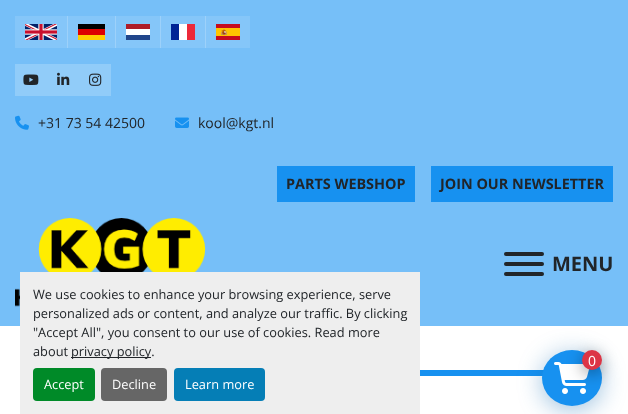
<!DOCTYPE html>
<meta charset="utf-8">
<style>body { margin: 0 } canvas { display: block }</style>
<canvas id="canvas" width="628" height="414"></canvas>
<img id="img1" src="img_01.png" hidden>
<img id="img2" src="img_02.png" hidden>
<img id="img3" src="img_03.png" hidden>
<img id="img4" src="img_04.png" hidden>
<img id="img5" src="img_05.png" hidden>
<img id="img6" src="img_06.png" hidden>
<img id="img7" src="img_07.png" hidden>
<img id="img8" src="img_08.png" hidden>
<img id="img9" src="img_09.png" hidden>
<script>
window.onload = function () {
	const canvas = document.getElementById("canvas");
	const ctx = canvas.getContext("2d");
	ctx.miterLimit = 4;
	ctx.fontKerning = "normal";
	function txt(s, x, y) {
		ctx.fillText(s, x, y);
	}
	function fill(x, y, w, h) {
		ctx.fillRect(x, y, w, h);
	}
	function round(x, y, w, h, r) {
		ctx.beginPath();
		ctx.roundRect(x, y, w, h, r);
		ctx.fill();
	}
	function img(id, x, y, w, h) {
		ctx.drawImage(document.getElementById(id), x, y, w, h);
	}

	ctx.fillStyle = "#FFFFFF";
	fill(0, 0, 628, 414);
	ctx.fillStyle = "#76BFF8";
	fill(0, 0, 628, 326);
	ctx.fillStyle = "#85C6F9";
	fill(15, 16, 52, 32);
	ctx.fillStyle = "#9DD1FA";
	fill(67, 16, 1, 32);
	img("img1", 25, 24, 32, 16);
	ctx.fillStyle = "#85C6F9";
	fill(68, 16, 47, 32);
	ctx.fillStyle = "#9DD1FA";
	fill(115, 16, 1, 32);
	ctx.fillStyle = "#000000";
	fill(78, 24, 27, 5);
	ctx.fillStyle = "#DD0000";
	fill(78, 29, 27, 6);
	ctx.fillStyle = "#FFCE00";
	fill(78, 35, 27, 5);
	ctx.fillStyle = "#85C6F9";
	fill(116, 16, 44, 32);
	ctx.fillStyle = "#9DD1FA";
	fill(160, 16, 1, 32);
	ctx.fillStyle = "#21468B";
	fill(126, 35, 24, 5);
	ctx.fillStyle = "#FFFFFF";
	fill(126, 29, 24, 6);
	ctx.fillStyle = "#AE1C28";
	fill(126, 24, 24, 5);
	ctx.fillStyle = "#85C6F9";
	fill(161, 16, 44, 32);
	ctx.fillStyle = "#9DD1FA";
	fill(205, 16, 1, 32);
	ctx.fillStyle = "#ED2939";
	fill(187, 24, 8, 16);
	ctx.fillStyle = "#FFFFFF";
	fill(179, 24, 8, 16);
	ctx.fillStyle = "#002395";
	fill(171, 24, 8, 16);
	ctx.fillStyle = "#85C6F9";
	fill(206, 16, 44, 32);
	img("img2", 216, 24, 24, 16);
	ctx.fillStyle = "#91CCF9";
	fill(15, 64, 96, 32);
	img("img3", 23, 74, 16, 11);
	img("img4", 57, 72, 13, 13);
	img("img5", 89, 73, 13, 13);
	img("img6", 15, 115, 14, 15);
	img("img7", 175, 117, 14, 11);
	ctx.fillStyle = "#1791F0";
	fill(277, 166, 138, 36);
	fill(431, 166, 182, 36);
	img("img8", 15, 218, 191, 89);
	ctx.fillStyle = "#212529";
	round(504, 262, 40, 4, 2);
	round(504, 252, 40, 4, 2);
	round(504, 272, 40, 4, 2);
	ctx.fillStyle = "#1791F0";
	fill(420, 370, 124, 6);
	ctx.fillStyle = "rgba(11, 103, 175, 0.4)";
	ctx.filter = "blur(12px)";
	ctx.beginPath();
	ctx.roundRect(542, 354, 60, 56, 28);
	ctx.fill();
	ctx.filter = "none";
	ctx.fillStyle = "#1791F0";
	ctx.beginPath();
	ctx.ellipse(572, 378, 30, 28, 0, 0, Math.PI * 2);
	ctx.fill();
	img("img9", 554, 362, 36, 32);
	ctx.fillStyle = "rgba(0, 0, 0, 0.4)";
	ctx.filter = "blur(8px)";
	ctx.beginPath();
	ctx.roundRect(582, 354, 20, 20, 10);
	ctx.fill();
	ctx.filter = "none";
	ctx.fillStyle = "#DC3545";
	ctx.beginPath();
	ctx.arc(592, 360, 10, 0, Math.PI * 2);
	ctx.fill();
	ctx.fillStyle = "#EEEEEE";
	fill(20, 272, 400, 142);
	ctx.fillStyle = "#212529";
	fill(71, 357, 80, 1);
	ctx.fillStyle = "#008A28";
	round(33, 368, 62, 33, 4);
	ctx.fillStyle = "#666666";
	round(101, 368, 66, 33, 4);
	ctx.fillStyle = "#057EB6";
	round(174, 368, 91, 33, 4);
	ctx.font = "14px Open Sans";
	ctx.fillStyle = "#212529";
	txt("+31 73 54 42500", 38, 128);
	txt("kool@kgt.nl", 198, 128);
	ctx.font = "bold 14.4px Open Sans";
	txt("PARTS WEBSHOP", 286, 189);
	txt("JOIN OUR NEWSLETTER", 440, 189);
	ctx.font = "bold 20px Open Sans";
	txt("MENU", 552, 271);
	ctx.font = "14px Open Sans";
	ctx.fillStyle = "#FFFFFF";
	txt("0", 588, 366);
	ctx.font = "12.8px Open Sans";
	ctx.fillStyle = "#212529";
	txt("We use cookies to enhance your browsing experience, serve", 33, 299);
	txt("personalized ads or content, and analyze our traffic. By clicking", 33, 318);
	txt("\"Accept All\", you consent to our use of cookies. Read more", 33, 337);
	txt("about", 33, 356);
	txt("privacy policy.", 71, 356);
	ctx.fillStyle = "#FFFFFF";
	txt("Accept", 44, 389);
	txt("Decline", 112, 389);
	txt("Learn more", 185, 389);
};
</script>
